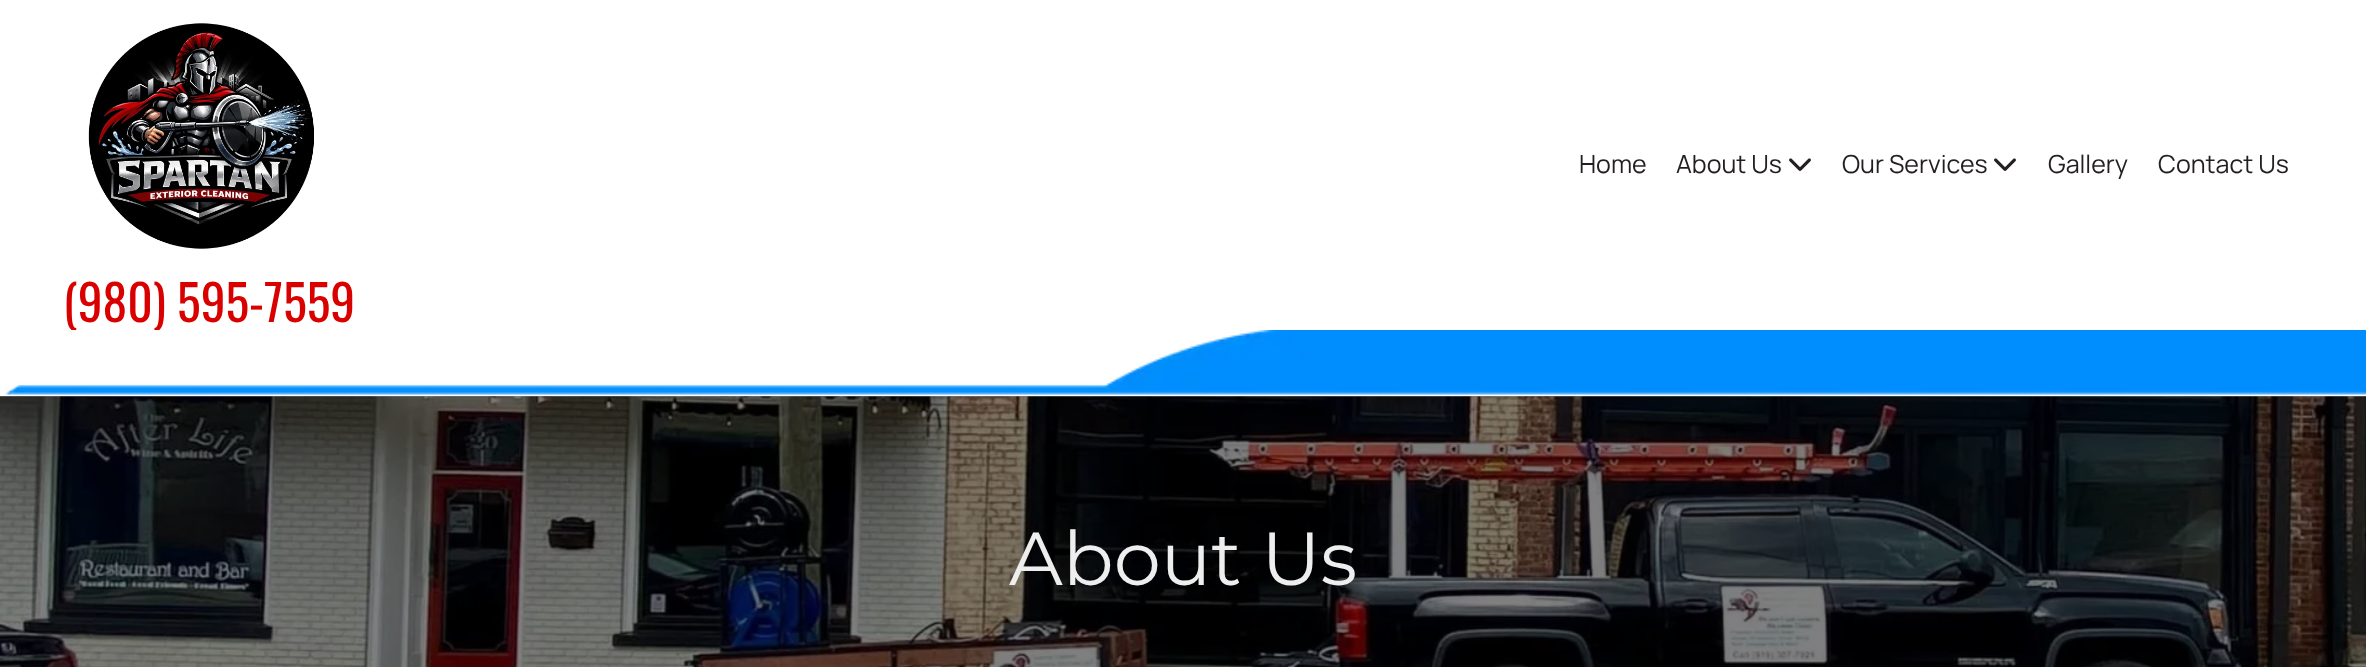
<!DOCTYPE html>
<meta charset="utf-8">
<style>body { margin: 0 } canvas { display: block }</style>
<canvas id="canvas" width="2366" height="667"></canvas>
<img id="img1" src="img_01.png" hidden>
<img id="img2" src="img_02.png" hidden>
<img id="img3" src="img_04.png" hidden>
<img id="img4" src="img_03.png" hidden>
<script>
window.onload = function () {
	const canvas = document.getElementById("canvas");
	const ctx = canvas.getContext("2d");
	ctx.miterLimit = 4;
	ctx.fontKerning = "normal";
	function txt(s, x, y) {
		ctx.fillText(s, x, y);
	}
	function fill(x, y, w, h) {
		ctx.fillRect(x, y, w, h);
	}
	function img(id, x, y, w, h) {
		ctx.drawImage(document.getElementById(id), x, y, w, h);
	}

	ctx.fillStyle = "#FFFFFF";
	fill(0, 0, 2366, 667);
	ctx.fillStyle = "#808080";
	fill(0, 396, 2366, 1);
	img("img1", 1789, 158, 22, 13);
	img("img1", 1994, 158, 22, 13);
	img("img2", 88, 23, 226, 226);
	img("img3", 0, 396, 2366, 271);
	ctx.font = "25px Manrope";
	ctx.fillStyle = "#231F20";
	txt("Home", 1579, 173);
	txt("About Us", 1676, 173);
	txt("Our Services", 1842, 173);
	txt("Gallery", 2048, 173);
	txt("Contact Us", 2158, 173);
	ctx.font = "49.5px Oswald";
	ctx.fillStyle = "#D90000";
	txt("(980) 595-7559", 63, 322);
	ctx.fillStyle = "#FFFFFF";
	fill(71, 330, 88, 2);
	img("img4", 5, 330, 2361, 65);
	ctx.font = "75px Montserrat";
	ctx.fillStyle = "#EEEEEE";
	txt("About Us", 1009, 585);
};
</script>
